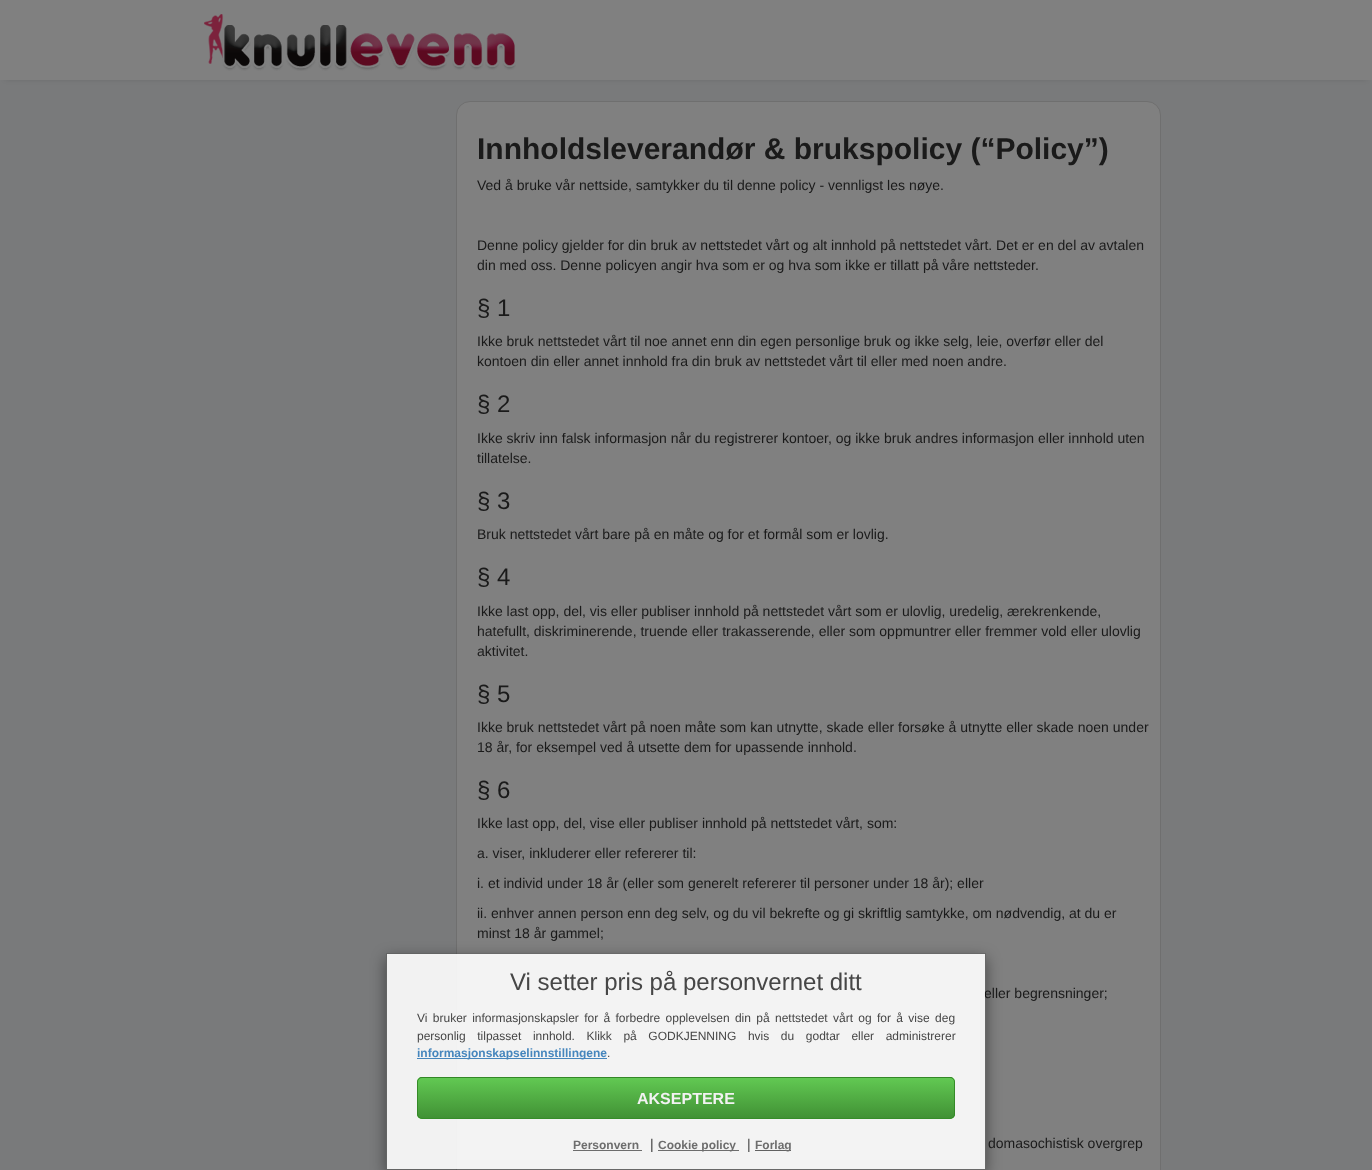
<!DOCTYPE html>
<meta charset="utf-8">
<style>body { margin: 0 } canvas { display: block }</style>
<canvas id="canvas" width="1372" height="1170"></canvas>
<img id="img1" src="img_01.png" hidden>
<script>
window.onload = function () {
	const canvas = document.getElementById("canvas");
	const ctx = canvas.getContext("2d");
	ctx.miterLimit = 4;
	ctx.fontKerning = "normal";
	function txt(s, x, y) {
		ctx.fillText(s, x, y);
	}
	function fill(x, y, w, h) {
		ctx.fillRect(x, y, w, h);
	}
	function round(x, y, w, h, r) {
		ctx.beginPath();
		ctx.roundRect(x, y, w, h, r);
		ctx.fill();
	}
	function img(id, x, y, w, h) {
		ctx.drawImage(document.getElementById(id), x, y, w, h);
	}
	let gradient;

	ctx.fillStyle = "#797A7B";
	fill(0, 0, 1372, 1170);
	ctx.fillStyle = "rgba(0, 0, 0, 0.1)";
	ctx.filter = "blur(2.5px)";
	ctx.beginPath();
	ctx.rect(5, 10, 1362, 70);
	ctx.fill();
	ctx.filter = "none";
	ctx.fillStyle = "#808080";
	fill(0, 0, 1372, 80);
	img("img1", 204, 14, 312, 57);
	ctx.beginPath();
	ctx.roundRect(456.5, 101.5, 704, 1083, 13.5);
	ctx.fill();
	ctx.strokeStyle = "#6F6F6F";
	ctx.stroke();
	ctx.save();
	ctx.beginPath();
	ctx.moveTo(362, 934);
	ctx.lineTo(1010, 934);
	ctx.lineTo(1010, 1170);
	ctx.lineTo(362, 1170);
	ctx.closePath();
	ctx.moveTo(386, 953);
	ctx.lineTo(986, 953);
	ctx.lineTo(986, 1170);
	ctx.lineTo(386, 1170);
	ctx.closePath();
	ctx.clip("evenodd");
	ctx.fillStyle = "rgba(0, 0, 0, 0.45)";
	ctx.filter = "blur(7.5px)";
	ctx.beginPath();
	ctx.rect(386, 958, 600, 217);
	ctx.fill();
	ctx.filter = "none";
	ctx.restore();
	ctx.font = "bold 30px Liberation Sans";
	ctx.fillStyle = "#1A1A1A";
	txt("Innholdsleverandør & brukspolicy (“Policy”)", 477, 159);
	ctx.font = "14px Liberation Sans";
	txt("Ved å bruke vår nettside, samtykker du til denne policy - vennligst les nøye.", 477, 190);
	txt("Denne policy gjelder for din bruk av nettstedet vårt og alt innhold på nettstedet vårt. Det er en del av avtalen", 477, 250);
	txt("din med oss. Denne policyen angir hva som er og hva som ikke er tillatt på våre nettsteder.", 477, 270);
	ctx.font = "24px Liberation Sans";
	txt("§ 1", 477, 316);
	ctx.font = "14px Liberation Sans";
	txt("Ikke bruk nettstedet vårt til noe annet enn din egen personlige bruk og ikke selg, leie, overfør eller del", 477, 346);
	txt("kontoen din eller annet innhold fra din bruk av nettstedet vårt til eller med noen andre.", 477, 366);
	ctx.font = "24px Liberation Sans";
	txt("§ 2", 477, 412);
	ctx.font = "14px Liberation Sans";
	txt("Ikke skriv inn falsk informasjon når du registrerer kontoer, og ikke bruk andres informasjon eller innhold uten", 477, 443);
	txt("tillatelse.", 477, 463);
	ctx.font = "24px Liberation Sans";
	txt("§ 3", 477, 509);
	ctx.font = "14px Liberation Sans";
	txt("Bruk nettstedet vårt bare på en måte og for et formål som er lovlig.", 477, 539);
	ctx.font = "24px Liberation Sans";
	txt("§ 4", 477, 585);
	ctx.font = "14px Liberation Sans";
	txt("Ikke last opp, del, vis eller publiser innhold på nettstedet vårt som er ulovlig, uredelig, ærekrenkende,", 477, 616);
	txt("hatefullt, diskriminerende, truende eller trakasserende, eller som oppmuntrer eller fremmer vold eller ulovlig", 477, 636);
	txt("aktivitet.", 477, 656);
	ctx.font = "24px Liberation Sans";
	txt("§ 5", 477, 702);
	ctx.font = "14px Liberation Sans";
	txt("Ikke bruk nettstedet vårt på noen måte som kan utnytte, skade eller forsøke å utnytte eller skade noen under", 477, 732);
	txt("18 år, for eksempel ved å utsette dem for upassende innhold.", 477, 752);
	ctx.font = "24px Liberation Sans";
	txt("§ 6", 477, 798);
	ctx.font = "14px Liberation Sans";
	txt("Ikke last opp, del, vise eller publiser innhold på nettstedet vårt, som:", 477, 828);
	txt("a. viser, inkluderer eller refererer til:", 477, 858);
	txt("i. et individ under 18 år (eller som generelt refererer til personer under 18 år); eller", 477, 888);
	txt("ii. enhver annen person enn deg selv, og du vil bekrefte og gi skriftlig samtykke, om nødvendig, at du er", 477, 918);
	txt("minst 18 år gammel;", 477, 938);
	txt("eller begrensninger;", 984, 998);
	txt("domasochistisk overgrep", 988, 1148);
	ctx.fillStyle = "rgba(255, 255, 255, 0.9)";
	fill(387, 954, 598, 215);
	ctx.strokeStyle = "rgba(0, 0, 0, 0.18)";
	ctx.strokeRect(386.5, 953.5, 599, 216);
	ctx.font = "24px Liberation Sans";
	ctx.fillStyle = "#464646";
	txt("Vi setter pris på personvernet ditt", 510, 990);
	ctx.wordSpacing = "2px";
	ctx.font = "12px Liberation Sans";
	txt("Vi bruker informasjonskapsler for å forbedre opplevelsen din på nettstedet vårt og for å vise deg", 417, 1022);
	ctx.wordSpacing = "8.25px";
	txt("personlig tilpasset innhold. Klikk på GODKJENNING hvis du godtar eller administrerer", 417, 1040);
	ctx.fillStyle = "rgba(51, 122, 183, 0.9)";
	fill(417, 1058, 190, 1);
	ctx.wordSpacing = "0px";
	ctx.font = "bold 12px Liberation Sans";
	ctx.fillStyle = "#4686BD";
	txt("informasjonskapselinnstillingene", 417, 1057);
	ctx.font = "12px Liberation Sans";
	ctx.fillStyle = "#464646";
	txt(".", 607, 1057);
	ctx.fillStyle = "rgba(96, 200, 81, 0.9)";
	round(417, 1077, 538, 42, 5);
	ctx.save();
	ctx.beginPath();
	ctx.roundRect(417, 1077, 538, 42, 5);
	ctx.clip();
	gradient = ctx.createLinearGradient(686, 1038, 686, 1078);
	gradient.addColorStop(0, "rgba(96, 200, 81, 0.9)");
	gradient.addColorStop(1, "rgba(60, 139, 48, 0.9)");
	ctx.fillStyle = gradient;
	fill(417, 1077, 538, 1);
	gradient = ctx.createLinearGradient(686, 1078, 686, 1118);
	gradient.addColorStop(0, "rgba(96, 200, 81, 0.9)");
	gradient.addColorStop(1, "rgba(60, 139, 48, 0.9)");
	ctx.fillStyle = gradient;
	fill(417, 1078, 538, 40);
	gradient = ctx.createLinearGradient(686, 1118, 686, 1158);
	gradient.addColorStop(0, "rgba(96, 200, 81, 0.9)");
	gradient.addColorStop(1, "rgba(60, 139, 48, 0.9)");
	ctx.fillStyle = gradient;
	fill(417, 1118, 538, 1);
	ctx.restore();
	ctx.beginPath();
	ctx.roundRect(417.5, 1077.5, 537, 41, 4.5);
	ctx.strokeStyle = "rgba(50, 134, 37, 0.9)";
	ctx.stroke();
	ctx.font = "bold 16px Liberation Sans";
	ctx.fillStyle = "#F2F2F2";
	txt("AKSEPTERE", 637, 1104);
	ctx.font = "bold 12px Liberation Sans";
	ctx.fillStyle = "#6D6D6D";
	txt("Personvern", 573, 1149);
	ctx.fillStyle = "rgba(94, 94, 94, 0.9)";
	fill(573, 1150, 69, 1);
	ctx.font = "14px Liberation Sans";
	ctx.fillStyle = "#3B3B3B";
	txt("|", 650, 1149);
	ctx.fillStyle = "rgba(94, 94, 94, 0.9)";
	fill(658, 1150, 81, 1);
	ctx.font = "bold 12px Liberation Sans";
	ctx.fillStyle = "#6D6D6D";
	txt("Cookie policy", 658, 1149);
	ctx.font = "14px Liberation Sans";
	ctx.fillStyle = "#464646";
	txt("|", 747, 1149);
	ctx.fillStyle = "#616161";
	fill(755, 1150, 36, 1);
	ctx.font = "bold 12px Liberation Sans";
	ctx.fillStyle = "#6D6D6D";
	txt("Forlag", 755, 1149);
};
</script>
